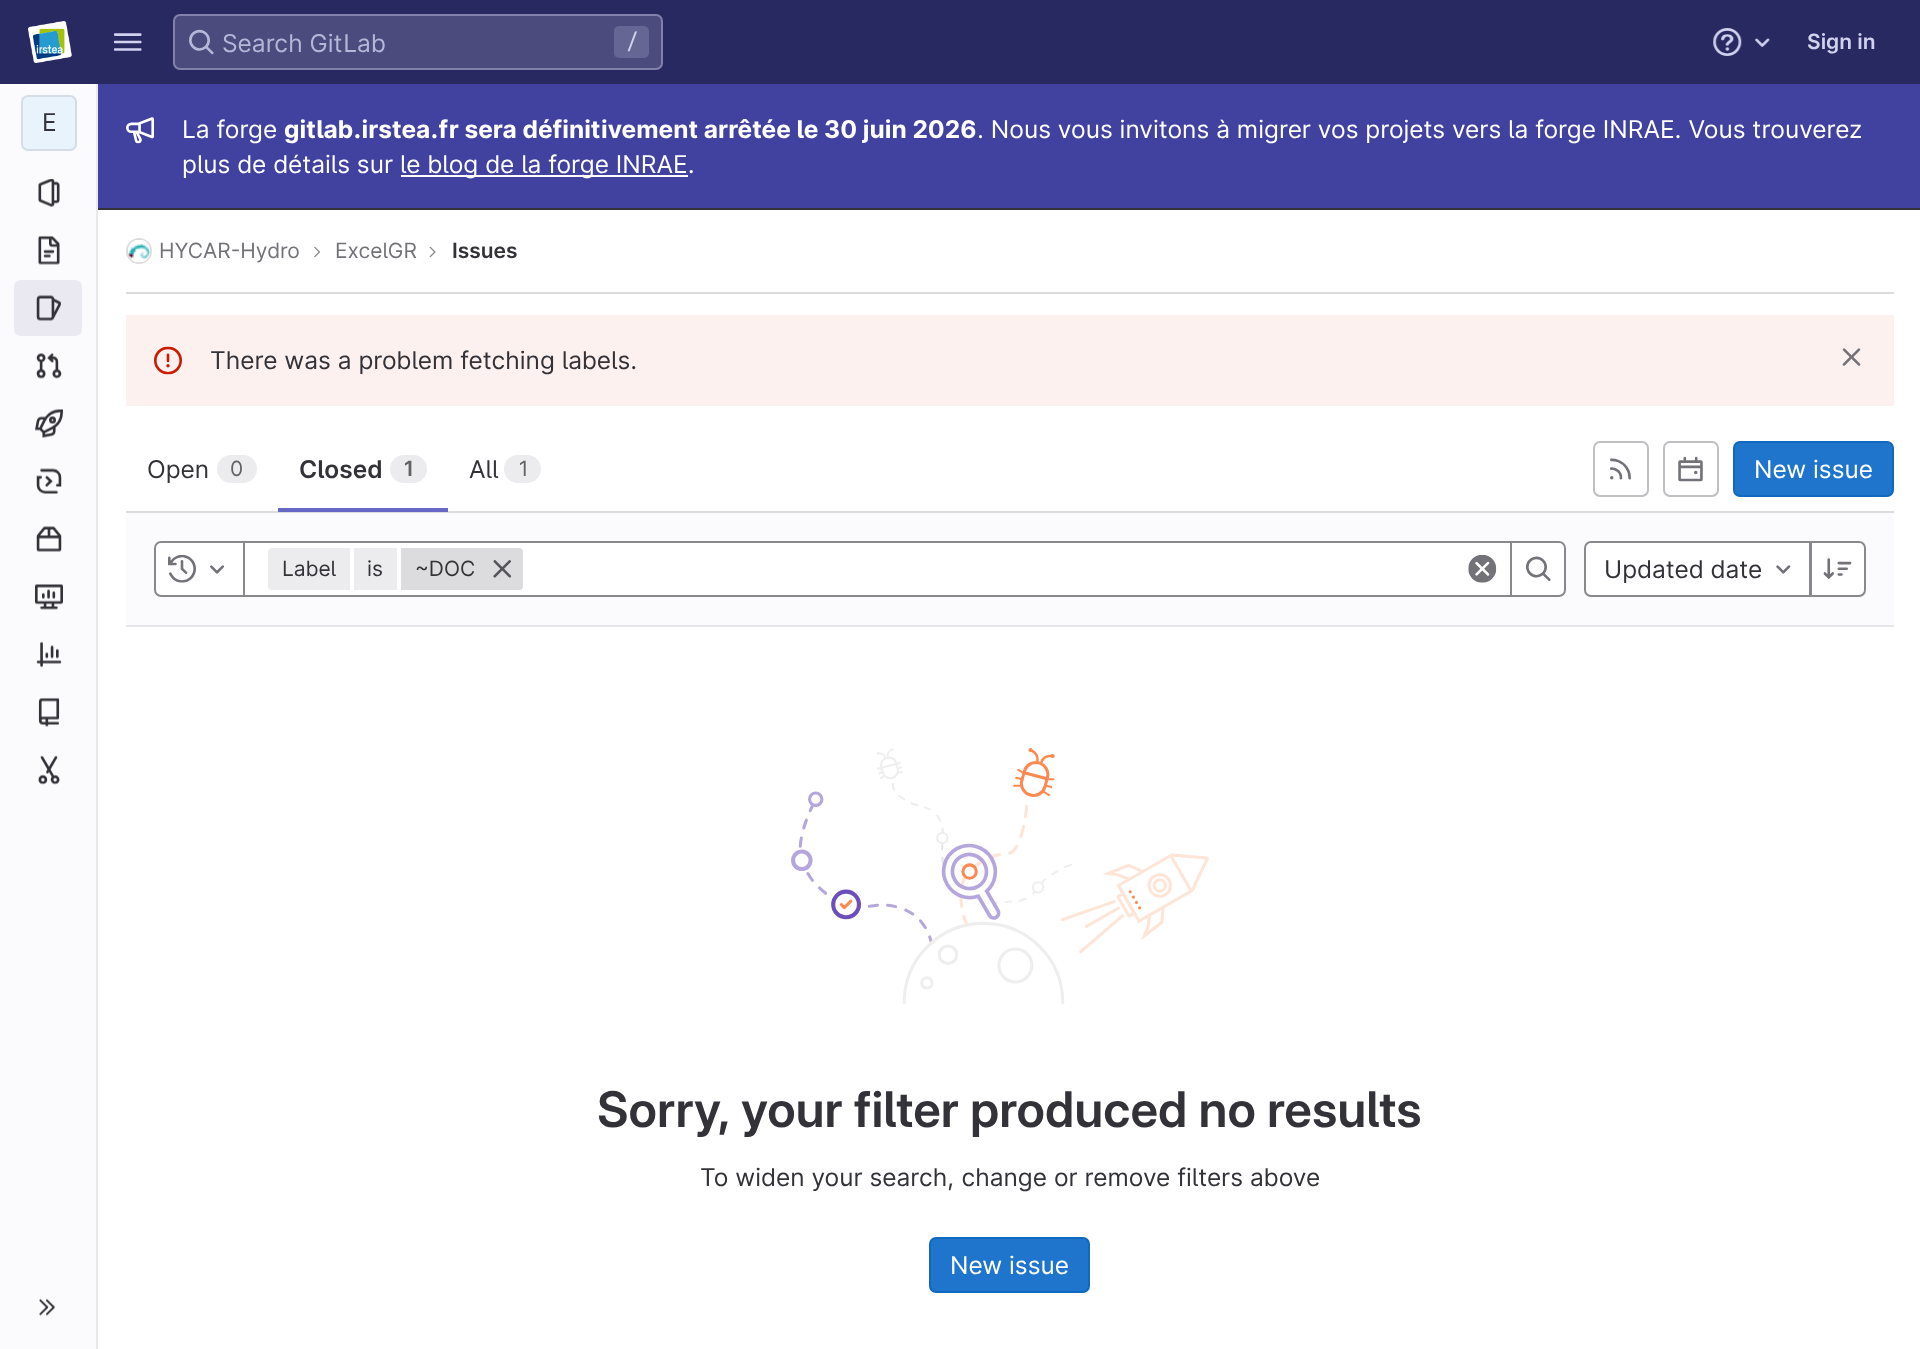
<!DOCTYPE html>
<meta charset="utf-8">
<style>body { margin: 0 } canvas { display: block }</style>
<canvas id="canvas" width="1920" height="1349"></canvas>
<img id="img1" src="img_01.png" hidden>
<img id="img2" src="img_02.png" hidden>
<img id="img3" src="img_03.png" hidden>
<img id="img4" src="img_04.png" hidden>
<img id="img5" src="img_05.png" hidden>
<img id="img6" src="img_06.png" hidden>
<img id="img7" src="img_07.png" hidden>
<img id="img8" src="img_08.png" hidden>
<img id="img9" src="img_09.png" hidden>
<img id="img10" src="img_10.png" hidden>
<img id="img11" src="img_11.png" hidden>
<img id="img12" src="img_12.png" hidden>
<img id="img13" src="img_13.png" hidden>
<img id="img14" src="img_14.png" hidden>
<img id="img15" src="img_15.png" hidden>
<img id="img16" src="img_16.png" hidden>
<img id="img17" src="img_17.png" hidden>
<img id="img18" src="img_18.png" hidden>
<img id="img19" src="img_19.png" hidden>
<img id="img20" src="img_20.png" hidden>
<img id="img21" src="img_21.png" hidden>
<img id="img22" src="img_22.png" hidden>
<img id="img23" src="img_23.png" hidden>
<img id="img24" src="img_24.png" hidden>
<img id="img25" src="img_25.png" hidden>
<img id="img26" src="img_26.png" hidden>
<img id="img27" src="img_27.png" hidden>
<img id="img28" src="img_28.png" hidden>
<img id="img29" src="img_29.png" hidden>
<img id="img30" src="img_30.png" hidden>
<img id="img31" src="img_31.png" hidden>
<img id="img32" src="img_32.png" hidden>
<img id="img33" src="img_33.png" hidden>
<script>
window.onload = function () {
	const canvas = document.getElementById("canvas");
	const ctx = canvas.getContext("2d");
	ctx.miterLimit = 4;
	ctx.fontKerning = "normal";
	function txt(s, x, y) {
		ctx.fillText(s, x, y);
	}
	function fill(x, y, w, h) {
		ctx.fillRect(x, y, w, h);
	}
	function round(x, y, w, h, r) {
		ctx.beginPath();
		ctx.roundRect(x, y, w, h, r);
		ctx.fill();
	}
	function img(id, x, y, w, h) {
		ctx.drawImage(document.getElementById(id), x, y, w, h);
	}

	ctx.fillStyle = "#FFFFFF";
	fill(0, 0, 1920, 1349);
	ctx.fillStyle = "#292961";
	fill(0, 0, 1920, 84);
	img("img1", 28, 21, 44, 42);
	img("img2", 113, 33, 29, 18);
	ctx.fillStyle = "#4B4B7E";
	round(173, 14, 490, 56, 7);
	ctx.beginPath();
	ctx.roundRect(174, 15, 488, 54, 6);
	ctx.strokeStyle = "rgba(209, 209, 240, 0.4)";
	ctx.lineWidth = 2;
	ctx.stroke();
	img("img3", 189, 29, 25, 26);
	ctx.fillStyle = "#666695";
	round(614, 26, 35, 32, 5);
	img("img4", 1713, 28, 29, 28);
	img("img5", 1755, 38, 15, 9);
	ctx.fillStyle = "#FBFAFD";
	fill(0, 84, 96, 1265);
	ctx.fillStyle = "#E9E9E9";
	fill(96, 84, 2, 1265);
	ctx.fillStyle = "#E9F3FC";
	round(21, 95, 56, 56, 7);
	ctx.beginPath();
	ctx.roundRect(22, 96, 54, 54, 6);
	ctx.strokeStyle = "rgba(31, 30, 36, 0.1)";
	ctx.stroke();
	img("img6", 38, 179, 22, 28);
	img("img7", 38, 235, 22, 30);
	ctx.fillStyle = "#EAE9F1";
	round(14, 280, 68, 56, 7);
	img("img8", 36, 295, 25, 26);
	img("img9", 36, 353, 26, 26);
	img("img10", 35, 409, 28, 29);
	img("img11", 36, 468, 26, 26);
	img("img12", 36, 526, 26, 26);
	img("img13", 35, 584, 28, 26);
	img("img14", 36, 641, 26, 27);
	img("img15", 38, 697, 22, 30);
	img("img16", 38, 755, 22, 30);
	img("img17", 39, 1298, 16, 18);
	ctx.fillStyle = "#41419F";
	fill(98, 84, 1822, 124);
	ctx.fillStyle = "#333238";
	fill(98, 208, 1822, 2);
	img("img18", 126, 117, 28, 27);
	ctx.fillStyle = "#FFFFFF";
	fill(401, 175, 287, 2);
	ctx.fillStyle = "#DCDCDE";
	fill(126, 292, 1768, 2);
	ctx.beginPath();
	ctx.arc(139, 251, 12, 0, Math.PI * 2);
	ctx.strokeStyle = "#DCDCDE";
	ctx.stroke();
	img("img19", 128, 240, 23, 23);
	img("img20", 314, 246, 6, 12);
	img("img21", 429, 246, 7, 12);
	ctx.fillStyle = "#FCF1EF";
	fill(126, 315, 1768, 91);
	img("img22", 154, 346, 28, 29);
	img("img23", 1842, 348, 19, 18);
	ctx.fillStyle = "#DCDCDE";
	fill(126, 511, 1768, 2);
	ctx.fillStyle = "#ECECEF";
	round(217, 455, 40, 28, 14);
	ctx.fillStyle = "#6666C4";
	fill(278, 508, 170, 4);
	ctx.fillStyle = "#ECECEF";
	round(390, 455, 37, 28, 14);
	round(504, 455, 37, 28, 14);
	ctx.beginPath();
	ctx.roundRect(1594, 442, 54, 54, 6);
	ctx.strokeStyle = "#BFBFC3";
	ctx.stroke();
	img("img24", 1610, 458, 21, 22);
	ctx.beginPath();
	ctx.roundRect(1664, 442, 54, 54, 6);
	ctx.stroke();
	img("img25", 1678, 456, 25, 26);
	ctx.fillStyle = "#1F75CB";
	ctx.beginPath();
	ctx.roundRect(1734, 442, 159, 54, 6);
	ctx.fill();
	ctx.strokeStyle = "#1068BF";
	ctx.stroke();
	ctx.fillStyle = "#FBFAFD";
	fill(126, 513, 1768, 112);
	ctx.fillStyle = "#E6E6EA";
	fill(126, 625, 1768, 2);
	ctx.fillStyle = "#FFFFFF";
	fill(154, 541, 7, 56);
	ctx.beginPath();
	ctx.rect(244, 542, 1267, 54);
	ctx.fill();
	ctx.strokeStyle = "#89888D";
	ctx.stroke();
	ctx.beginPath();
	ctx.roundRect(155, 542, 89, 54, [6, 0, 0, 6]);
	ctx.fill();
	ctx.stroke();
	img("img26", 168, 554, 28, 29);
	img("img27", 210, 565, 14, 9);
	ctx.fillStyle = "#ECECEF";
	ctx.beginPath();
	ctx.roundRect(268, 548, 82, 42, [4, 0, 0, 4]);
	ctx.fill();
	fill(354, 548, 43, 42);
	ctx.fillStyle = "#DCDCDE";
	ctx.beginPath();
	ctx.roundRect(401, 548, 122, 42, [0, 4, 4, 0]);
	ctx.fill();
	img("img28", 493, 560, 19, 18);
	img("img29", 1468, 554, 29, 29);
	ctx.fillStyle = "#FFFFFF";
	fill(1559, 541, 7, 56);
	ctx.beginPath();
	ctx.roundRect(1511, 542, 54, 54, [0, 6, 6, 0]);
	ctx.fill();
	ctx.stroke();
	img("img30", 1526, 556, 25, 25);
	ctx.beginPath();
	ctx.roundRect(1585, 542, 225, 54, [6, 0, 0, 6]);
	ctx.fill();
	ctx.stroke();
	img("img31", 1776, 565, 15, 9);
	ctx.beginPath();
	ctx.roundRect(1811, 542, 54, 54, [0, 6, 6, 0]);
	ctx.fill();
	ctx.stroke();
	img("img32", 1823, 558, 29, 22);
	img("img33", 791, 748, 418, 256);
	ctx.fillStyle = "#1F75CB";
	ctx.beginPath();
	ctx.roundRect(930, 1238, 159, 54, 6);
	ctx.fill();
	ctx.strokeStyle = "#1068BF";
	ctx.stroke();
	ctx.font = "24.5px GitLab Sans";
	ctx.fillStyle = "#B6B6D9";
	txt("Search GitLab", 222, 52);
	ctx.font = "21px JetBrains Mono";
	ctx.fillStyle = "#D1D1F0";
	txt("/", 626, 49);
	ctx.font = "600 21px 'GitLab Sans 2'";
	txt("Sign in", 1807, 49);
	ctx.font = "24.5px GitLab Sans";
	ctx.fillStyle = "#333238";
	txt("E", 42, 131);
	ctx.fillStyle = "#FFFFFF";
	txt("La forge", 182, 138);
	ctx.font = "bold 24.5px GitLab Sans";
	txt("gitlab.irstea.fr sera définitivement arrêtée le 30 juin 2026", 284, 138);
	ctx.font = "24.5px GitLab Sans";
	txt(". Nous vous invitons à migrer vos projets vers la forge INRAE. Vous trouverez", 977, 138);
	txt("plus de détails sur", 182, 173);
	txt("le blog de la forge INRAE.", 400, 173);
	ctx.font = "21px GitLab Sans";
	ctx.fillStyle = "#737278";
	txt("HYCAR-Hydro", 159, 258);
	txt("ExcelGR", 335, 258);
	ctx.font = "600 21px 'GitLab Sans 2'";
	ctx.fillStyle = "#333238";
	txt("Issues", 452, 258);
	ctx.font = "24.5px GitLab Sans";
	txt("There was a problem fetching labels.", 210, 369);
	txt("Open", 147, 478);
	ctx.font = "21px GitLab Sans";
	ctx.fillStyle = "#626168";
	txt("0", 230, 476);
	ctx.font = "600 24.5px 'GitLab Sans 2'";
	ctx.fillStyle = "#333238";
	txt("Closed", 299, 478);
	ctx.font = "600 21px 'GitLab Sans 2'";
	ctx.fillStyle = "#626168";
	txt("1", 404, 476);
	ctx.font = "24.5px GitLab Sans";
	ctx.fillStyle = "#333238";
	txt("All", 469, 478);
	ctx.font = "21px GitLab Sans";
	ctx.fillStyle = "#626168";
	txt("1", 519, 476);
	ctx.font = "24.5px GitLab Sans";
	ctx.fillStyle = "#FFFFFF";
	txt("New issue", 1754, 478);
	ctx.font = "21px GitLab Sans";
	ctx.fillStyle = "#333238";
	txt("Label", 282, 576);
	txt("is", 367, 576);
	txt("~DOC", 415, 576);
	ctx.font = "24.5px GitLab Sans";
	txt("Updated date", 1604, 578);
	ctx.font = "600 49px GitLab Sans";
	txt("Sorry, your filter produced no results", 597, 1127);
	ctx.font = "24.5px GitLab Sans";
	txt("To widen your search, change or remove filters above", 700, 1186);
	ctx.fillStyle = "#FFFFFF";
	txt("New issue", 950, 1274);
};
</script>
